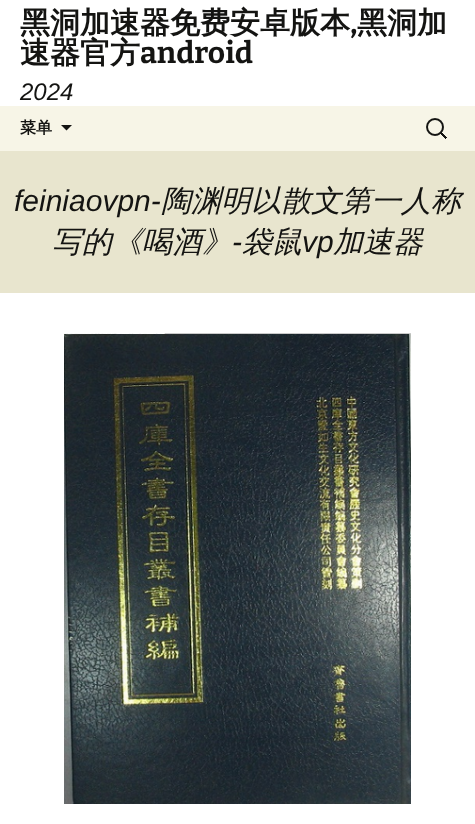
<!DOCTYPE html>
<meta charset="utf-8">
<style>body { margin: 0 } canvas { display: block }</style>
<canvas id="canvas" width="475" height="824"></canvas>
<img id="img1" src="img_01.png" hidden>
<img id="img2" src="img_02.png" hidden>
<script>
window.onload = function () {
	const canvas = document.getElementById("canvas");
	const ctx = canvas.getContext("2d");
	ctx.miterLimit = 4;
	ctx.fontKerning = "normal";
	function txt(s, x, y) {
		ctx.fillText(s, x, y);
	}
	function fill(x, y, w, h) {
		ctx.fillRect(x, y, w, h);
	}
	function img(id, x, y, w, h) {
		ctx.drawImage(document.getElementById(id), x, y, w, h);
	}

	ctx.fillStyle = "#FFFFFF";
	fill(0, 0, 475, 824);
	ctx.fillStyle = "#F7F5E7";
	fill(0, 106, 475, 45);
	ctx.fillStyle = "#141412";
	ctx.beginPath();
	ctx.moveTo(61, 125);
	ctx.lineTo(66.5, 130.5);
	ctx.lineTo(72, 125);
	ctx.closePath();
	ctx.fill();
	img("img1", 426, 118, 21, 21);
	ctx.fillStyle = "#E8E5CE";
	fill(0, 151, 475, 142);
	img("img2", 64, 333, 347, 471);
	ctx.font = "bold 30px WenQuanYi Zen Hei";
	ctx.fillStyle = "#141412";
	txt("黑洞加速器免费安卓版本", 20, 33);
	ctx.font = "bold 30px Bitter";
	txt(",", 350, 33);
	ctx.font = "bold 30px WenQuanYi Zen Hei";
	txt("黑洞加", 357, 33);
	txt("速器官方", 20, 63);
	ctx.font = "bold 30px Bitter";
	txt("android", 140, 63);
	ctx.font = "italic 24px Liberation Sans";
	txt("2024", 20, 100);
	ctx.font = "bold 16px WenQuanYi Zen Hei";
	txt("菜单", 20, 133);
	ctx.font = "italic 30px Liberation Sans";
	txt("feiniaovpn-", 14, 211);
	ctx.font = "italic 500 30px WenQuanYi Zen Hei";
	txt("陶渊明以散文第一人称", 161, 211);
	txt("写的《喝酒》", 52, 252);
	ctx.font = "italic 30px Liberation Sans";
	txt("-", 232, 252);
	ctx.font = "italic 500 30px WenQuanYi Zen Hei";
	txt("袋鼠", 242, 252);
	ctx.font = "italic 30px Liberation Sans";
	txt("vp", 302, 252);
	ctx.font = "italic 500 30px WenQuanYi Zen Hei";
	txt("加速器", 333, 252);
};
</script>
